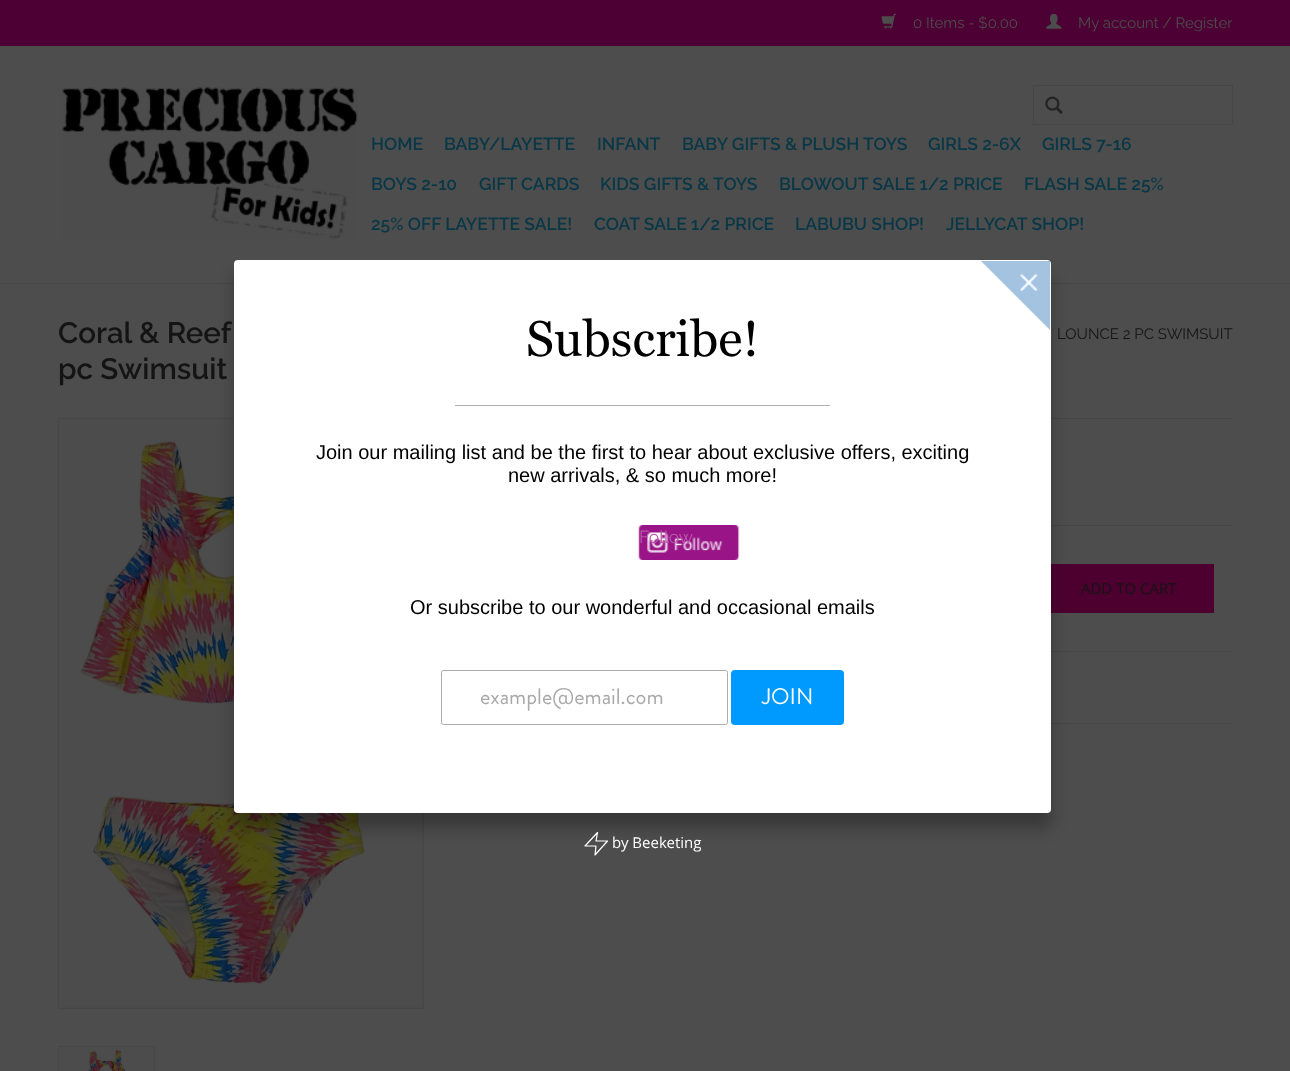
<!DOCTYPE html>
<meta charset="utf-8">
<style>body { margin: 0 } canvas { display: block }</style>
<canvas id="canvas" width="1290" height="1071"></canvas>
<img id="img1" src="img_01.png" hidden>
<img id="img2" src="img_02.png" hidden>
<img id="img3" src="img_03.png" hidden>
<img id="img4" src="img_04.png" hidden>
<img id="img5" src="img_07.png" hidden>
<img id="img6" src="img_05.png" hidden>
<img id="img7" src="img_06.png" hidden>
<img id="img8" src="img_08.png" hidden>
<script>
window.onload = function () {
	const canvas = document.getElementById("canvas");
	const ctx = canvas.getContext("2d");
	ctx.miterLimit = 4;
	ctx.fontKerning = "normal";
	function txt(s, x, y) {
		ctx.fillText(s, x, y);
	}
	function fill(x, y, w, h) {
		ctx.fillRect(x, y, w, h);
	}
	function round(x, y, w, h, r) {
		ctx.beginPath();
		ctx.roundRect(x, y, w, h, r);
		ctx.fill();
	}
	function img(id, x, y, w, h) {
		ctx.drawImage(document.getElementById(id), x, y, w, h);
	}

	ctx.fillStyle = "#4D4D4D";
	fill(0, 0, 1290, 1071);
	ctx.fillStyle = "#464646";
	fill(0, 283, 1290, 1);
	ctx.fillStyle = "#4D0033";
	fill(0, 0, 1290, 45);
	ctx.fillStyle = "#47002F";
	fill(0, 45, 1290, 1);
	img("img1", 881, 13, 16, 16);
	img("img2", 1046, 13, 16, 16);
	img("img3", 62, 87, 296, 152);
	ctx.strokeStyle = "#464646";
	ctx.strokeRect(1033.5, 85.5, 199, 39);
	img("img4", 1045, 96, 18, 18);
	ctx.strokeRect(58.5, 418.5, 365, 590);
	ctx.fillStyle = "#4A4A4A";
	fill(59, 813, 364, 195);
	img("img5", 59, 419, 363, 588);
	ctx.fillStyle = "#464646";
	fill(1051, 418, 182, 1);
	fill(1051, 525, 182, 1);
	ctx.fillStyle = "#4D0030";
	fill(1051, 564, 163, 49);
	ctx.fillStyle = "#464646";
	fill(1051, 651, 182, 1);
	fill(1051, 723, 182, 1);
	ctx.fillStyle = "rgba(0, 0, 0, 0.27)";
	ctx.filter = "blur(7.5px)";
	ctx.beginPath();
	ctx.roundRect(234, 275, 817, 553, 4);
	ctx.fill();
	ctx.filter = "none";
	ctx.fillStyle = "#FFFFFF";
	round(234, 260, 817, 553, 4);
	ctx.fillStyle = "#A3C3E0";
	ctx.beginPath();
	ctx.moveTo(981, 261);
	ctx.lineTo(1050, 261);
	ctx.lineTo(1050, 330);
	ctx.closePath();
	ctx.fill();
	img("img6", 1020, 273, 18, 19);
	ctx.fillStyle = "#B1B1B1";
	fill(455, 405, 375, 1);
	img("img7", 638, 525, 102, 35);
	ctx.beginPath();
	ctx.roundRect(441.5, 670.5, 286, 54, 2);
	ctx.strokeStyle = "#ACACAC";
	ctx.stroke();
	ctx.fillStyle = "#009AFF";
	round(731, 670, 113, 55, 4);
	ctx.beginPath();
	ctx.moveTo(597.5, 832.5);
	ctx.lineTo(585, 846);
	ctx.lineTo(596, 846);
	ctx.lineTo(595, 855);
	ctx.lineTo(607.5, 841);
	ctx.lineTo(596, 841);
	ctx.closePath();
	ctx.strokeStyle = "#FFFFFF";
	ctx.lineWidth = 1.2;
	ctx.lineCap = "round";
	ctx.lineJoin = "round";
	ctx.stroke();
	ctx.strokeStyle = "#464646";
	ctx.lineWidth = 1;
	ctx.lineJoin = "miter";
	ctx.strokeRect(58.5, 1046.5, 96, 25);
	img("img8", 58, 1047, 96, 24);
	ctx.font = "15px Raleway";
	ctx.fillStyle = "#4D4D4D";
	txt("0 Items - $0.00", 913, 28);
	txt("My account / Register", 1078, 28);
	ctx.font = "600 17.5px Raleway";
	ctx.fillStyle = "#083847";
	txt("HOME", 371, 150);
	txt("BABY/LAYETTE", 444, 150);
	txt("INFANT", 597, 150);
	txt("BABY GIFTS & PLUSH TOYS", 682, 150);
	txt("GIRLS 2-6X", 928, 150);
	txt("GIRLS 7-16", 1042, 150);
	txt("BOYS 2-10", 371, 190);
	txt("GIFT CARDS", 479, 190);
	txt("KIDS GIFTS & TOYS", 600, 190);
	txt("BLOWOUT SALE 1/2 PRICE", 779, 190);
	txt("FLASH SALE 25%", 1024, 190);
	txt("25% OFF LAYETTE SALE!", 371, 230);
	txt("COAT SALE 1/2 PRICE", 594, 230);
	txt("LABUBU SHOP!", 795, 230);
	txt("JELLYCAT SHOP!", 946, 230);
	ctx.font = "50px Georgia";
	ctx.fillStyle = "#000000";
	txt("Subscribe!", 526, 356);
	ctx.font = "20px Liberation Sans";
	txt("Join our mailing list and be the first to hear about exclusive offers, exciting", 316, 459);
	txt("new arrivals, & so much more!", 508, 482);
	ctx.font = "17.5px Raleway";
	ctx.fillStyle = "#B658A9";
	txt("Follow", 639, 543);
	ctx.font = "20px Liberation Sans";
	ctx.fillStyle = "#000000";
	txt("Or subscribe to our wonderful and occasional emails", 410, 614);
	ctx.font = "22.5px Brandon Grotesque";
	ctx.fillStyle = "#A9A9A9";
	txt("example@email.com", 480, 704);
	ctx.fillStyle = "#FFFFFF";
	txt("JOIN", 762, 704);
	ctx.font = "15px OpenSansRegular";
	txt("by Beeketing", 612, 848);
	ctx.font = "600 29.5px Raleway";
	ctx.fillStyle = "#141414";
	txt("Coral & Reef", 58, 343);
	txt("pc Swimsuit", 58, 379);
	ctx.font = "15px Raleway";
	txt("LOUNCE 2 PC SWIMSUIT", 1057, 339);
	ctx.font = "15px Open Sans";
	txt("ADD TO CART", 1081, 594);
};
</script>
